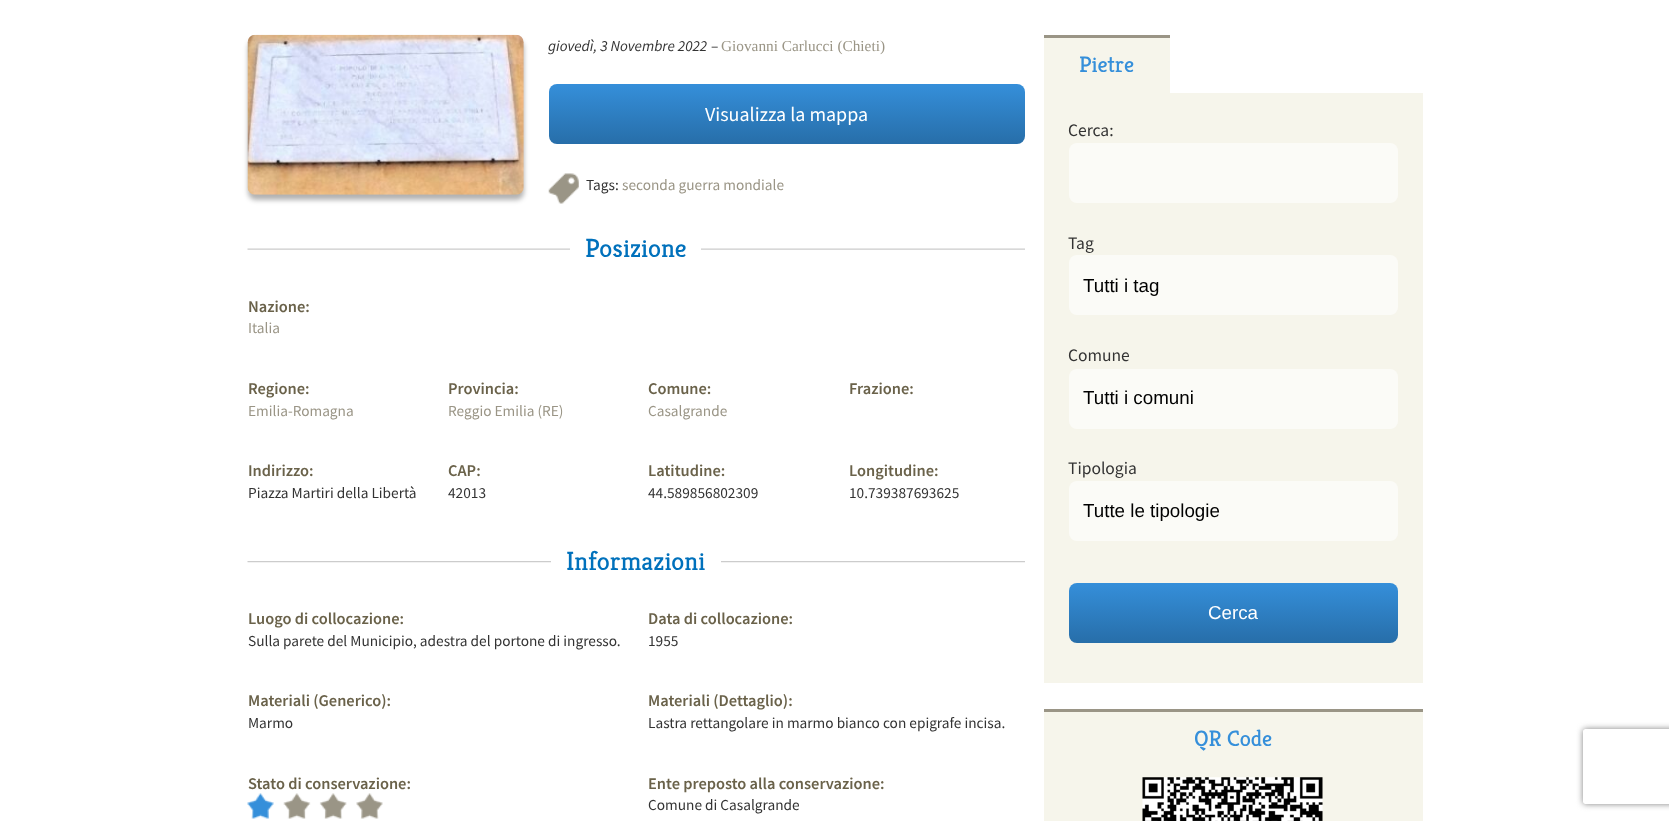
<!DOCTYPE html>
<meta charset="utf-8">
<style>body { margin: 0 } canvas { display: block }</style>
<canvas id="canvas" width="1669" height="821"></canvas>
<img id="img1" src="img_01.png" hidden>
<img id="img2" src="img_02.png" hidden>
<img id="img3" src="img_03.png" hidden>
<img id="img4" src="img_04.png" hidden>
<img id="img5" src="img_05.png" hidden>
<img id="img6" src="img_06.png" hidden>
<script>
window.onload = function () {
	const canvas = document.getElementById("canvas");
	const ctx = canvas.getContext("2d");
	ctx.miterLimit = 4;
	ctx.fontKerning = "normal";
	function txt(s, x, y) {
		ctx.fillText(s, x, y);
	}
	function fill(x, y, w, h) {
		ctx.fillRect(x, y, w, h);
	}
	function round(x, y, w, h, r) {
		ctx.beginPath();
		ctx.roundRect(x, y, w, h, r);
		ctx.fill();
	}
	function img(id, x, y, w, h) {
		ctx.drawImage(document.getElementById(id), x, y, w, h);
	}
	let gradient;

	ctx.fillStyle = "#FFFFFF";
	fill(0, 0, 1669, 821);
	ctx.fillStyle = "rgba(0, 0, 0, 0.3)";
	ctx.filter = "blur(2.5px)";
	ctx.beginPath();
	ctx.roundRect(248, 40, 276, 160, 8);
	ctx.fill();
	ctx.filter = "none";
	img("img1", 247, 34, 277, 161);
	gradient = ctx.createLinearGradient(787, 84, 787, 144);
	gradient.addColorStop(0, "#358FDA");
	gradient.addColorStop(1, "#276EA9");
	ctx.fillStyle = gradient;
	round(549, 84, 476, 60, 8);
	img("img2", 548, 173, 31, 31);
	img("img3", 247, 248, 778, 2);
	ctx.fillStyle = "#FFFFFF";
	fill(570, 248, 131, 2);
	img("img4", 247, 561, 778, 2);
	fill(551, 561, 170, 2);
	img("img5", 247, 793, 136, 26);
	ctx.fillStyle = "#F6F5EB";
	fill(1044, 38, 126, 55);
	ctx.fillStyle = "#9A9586";
	fill(1044, 35, 126, 3);
	ctx.fillStyle = "#F6F5EB";
	fill(1044, 93, 379, 590);
	ctx.fillStyle = "#FBFBF7";
	round(1069, 143, 329, 60, 8);
	round(1069, 255, 329, 60, 8);
	round(1069, 369, 329, 60, 8);
	round(1069, 481, 329, 60, 8);
	gradient = ctx.createLinearGradient(1233, 583, 1233, 643);
	gradient.addColorStop(0, "#358FDA");
	gradient.addColorStop(1, "#276EA9");
	ctx.fillStyle = gradient;
	round(1069, 583, 329, 60, 8);
	ctx.fillStyle = "#F6F5EB";
	fill(1044, 712, 379, 109);
	ctx.fillStyle = "#9A9586";
	fill(1044, 709, 379, 3);
	img("img6", 1142, 777, 181, 44);
	ctx.save();
	ctx.beginPath();
	ctx.moveTo(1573, 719);
	ctx.lineTo(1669, 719);
	ctx.lineTo(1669, 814);
	ctx.lineTo(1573, 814);
	ctx.closePath();
	ctx.moveTo(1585.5, 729);
	ctx.lineTo(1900.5, 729);
	ctx.bezierCurveTo(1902, 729, 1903, 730, 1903, 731.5);
	ctx.lineTo(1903, 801.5);
	ctx.bezierCurveTo(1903, 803, 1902, 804, 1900.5, 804);
	ctx.lineTo(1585.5, 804);
	ctx.bezierCurveTo(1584, 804, 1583, 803, 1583, 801.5);
	ctx.lineTo(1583, 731.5);
	ctx.bezierCurveTo(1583, 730, 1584, 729, 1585.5, 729);
	ctx.closePath();
	ctx.clip("evenodd");
	ctx.fillStyle = "#808080";
	ctx.filter = "blur(3px)";
	ctx.beginPath();
	ctx.roundRect(1583, 729, 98, 75, 2.5);
	ctx.fill();
	ctx.filter = "none";
	ctx.restore();
	ctx.font = "italic 15.3px Source Sans Pro";
	ctx.fillStyle = "#333333";
	txt("giovedì, 3 Novembre 2022", 548, 51);
	ctx.font = "15.3px Source Sans Pro";
	txt("–", 711, 51);
	ctx.font = "15.3px Liberation Serif";
	ctx.fillStyle = "#9A9586";
	txt("Giovanni Carlucci (Chieti)", 721, 51);
	ctx.font = "20px Source Sans Pro";
	ctx.fillStyle = "#FFFFFF";
	txt("Visualizza la mappa", 705, 121);
	ctx.font = "15.3px Source Sans Pro";
	ctx.fillStyle = "#333333";
	txt("Tags:", 586, 190);
	ctx.fillStyle = "#9A9586";
	txt("seconda guerra mondiale", 622, 190);
	ctx.font = "26.25px Kreon";
	ctx.fillStyle = "#0071BC";
	txt("Posizione", 585, 257);
	ctx.font = "600 16.4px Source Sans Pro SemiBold";
	ctx.fillStyle = "#6A624A";
	txt("Nazione:", 248, 312);
	ctx.font = "15.3px Source Sans Pro";
	ctx.fillStyle = "#9A9586";
	txt("Italia", 248, 333);
	ctx.font = "600 16.4px Source Sans Pro SemiBold";
	ctx.fillStyle = "#6A624A";
	txt("Regione:", 248, 394);
	ctx.font = "15.3px Source Sans Pro";
	ctx.fillStyle = "#9A9586";
	txt("Emilia-Romagna", 248, 416);
	ctx.font = "600 16.4px Source Sans Pro SemiBold";
	ctx.fillStyle = "#6A624A";
	txt("Provincia:", 448, 394);
	ctx.font = "15.3px Source Sans Pro";
	ctx.fillStyle = "#9A9586";
	txt("Reggio Emilia (RE)", 448, 416);
	ctx.font = "600 16.4px Source Sans Pro SemiBold";
	ctx.fillStyle = "#6A624A";
	txt("Comune:", 648, 394);
	ctx.font = "15.3px Source Sans Pro";
	ctx.fillStyle = "#9A9586";
	txt("Casalgrande", 648, 416);
	ctx.font = "600 16.4px Source Sans Pro SemiBold";
	ctx.fillStyle = "#6A624A";
	txt("Frazione:", 849, 394);
	txt("Indirizzo:", 248, 476);
	ctx.font = "15.3px Source Sans Pro";
	ctx.fillStyle = "#333333";
	txt("Piazza Martiri della Libertà", 248, 498);
	ctx.font = "600 16.4px Source Sans Pro SemiBold";
	ctx.fillStyle = "#6A624A";
	txt("CAP:", 448, 476);
	ctx.font = "15.3px Source Sans Pro";
	ctx.fillStyle = "#333333";
	txt("42013", 448, 498);
	ctx.font = "600 16.4px Source Sans Pro SemiBold";
	ctx.fillStyle = "#6A624A";
	txt("Latitudine:", 648, 476);
	ctx.font = "15.3px Source Sans Pro";
	ctx.fillStyle = "#333333";
	txt("44.589856802309", 648, 498);
	ctx.font = "600 16.4px Source Sans Pro SemiBold";
	ctx.fillStyle = "#6A624A";
	txt("Longitudine:", 849, 476);
	ctx.font = "15.3px Source Sans Pro";
	ctx.fillStyle = "#333333";
	txt("10.739387693625", 849, 498);
	ctx.font = "26.25px Kreon";
	ctx.fillStyle = "#0071BC";
	txt("Informazioni", 566, 570);
	ctx.font = "600 16.4px Source Sans Pro SemiBold";
	ctx.fillStyle = "#6A624A";
	txt("Luogo di collocazione:", 248, 624);
	ctx.font = "15.3px Source Sans Pro";
	ctx.fillStyle = "#333333";
	txt("Sulla parete del Municipio, adestra del portone di ingresso.", 248, 646);
	ctx.font = "600 16.4px Source Sans Pro SemiBold";
	ctx.fillStyle = "#6A624A";
	txt("Data di collocazione:", 648, 624);
	ctx.font = "15.3px Source Sans Pro";
	ctx.fillStyle = "#333333";
	txt("1955", 648, 646);
	ctx.font = "600 16.4px Source Sans Pro SemiBold";
	ctx.fillStyle = "#6A624A";
	txt("Materiali (Generico):", 248, 706);
	ctx.font = "15.3px Source Sans Pro";
	ctx.fillStyle = "#333333";
	txt("Marmo", 248, 728);
	ctx.font = "600 16.4px Source Sans Pro SemiBold";
	ctx.fillStyle = "#6A624A";
	txt("Materiali (Dettaglio):", 648, 706);
	ctx.font = "15.3px Source Sans Pro";
	ctx.fillStyle = "#333333";
	txt("Lastra rettangolare in marmo bianco con epigrafe incisa.", 648, 728);
	ctx.font = "600 16.4px Source Sans Pro SemiBold";
	ctx.fillStyle = "#6A624A";
	txt("Stato di conservazione:", 248, 789);
	txt("Ente preposto alla conservazione:", 648, 789);
	ctx.font = "15.3px Source Sans Pro";
	ctx.fillStyle = "#333333";
	txt("Comune di Casalgrande", 648, 810);
	ctx.font = "22.5px Kreon";
	ctx.fillStyle = "#358FDA";
	txt("Pietre", 1079, 72);
	ctx.font = "17.5px Source Sans Pro";
	ctx.fillStyle = "#333333";
	txt("Cerca:", 1068, 136);
	txt("Tag", 1068, 249);
	ctx.font = "18.75px Liberation Sans";
	ctx.fillStyle = "#000000";
	txt("Tutti i tag", 1083, 292);
	ctx.font = "17.5px Source Sans Pro";
	ctx.fillStyle = "#333333";
	txt("Comune", 1068, 361);
	ctx.font = "18.75px Liberation Sans";
	ctx.fillStyle = "#000000";
	txt("Tutti i comuni", 1083, 404);
	ctx.font = "17.5px Source Sans Pro";
	ctx.fillStyle = "#333333";
	txt("Tipologia", 1068, 474);
	ctx.font = "18.75px Liberation Sans";
	ctx.fillStyle = "#000000";
	txt("Tutte le tipologie", 1083, 517);
	ctx.fillStyle = "#FFFFFF";
	txt("Cerca", 1208, 619);
	ctx.font = "22.5px Kreon";
	ctx.fillStyle = "#358FDA";
	txt("QR Code", 1194, 746);
};
</script>
